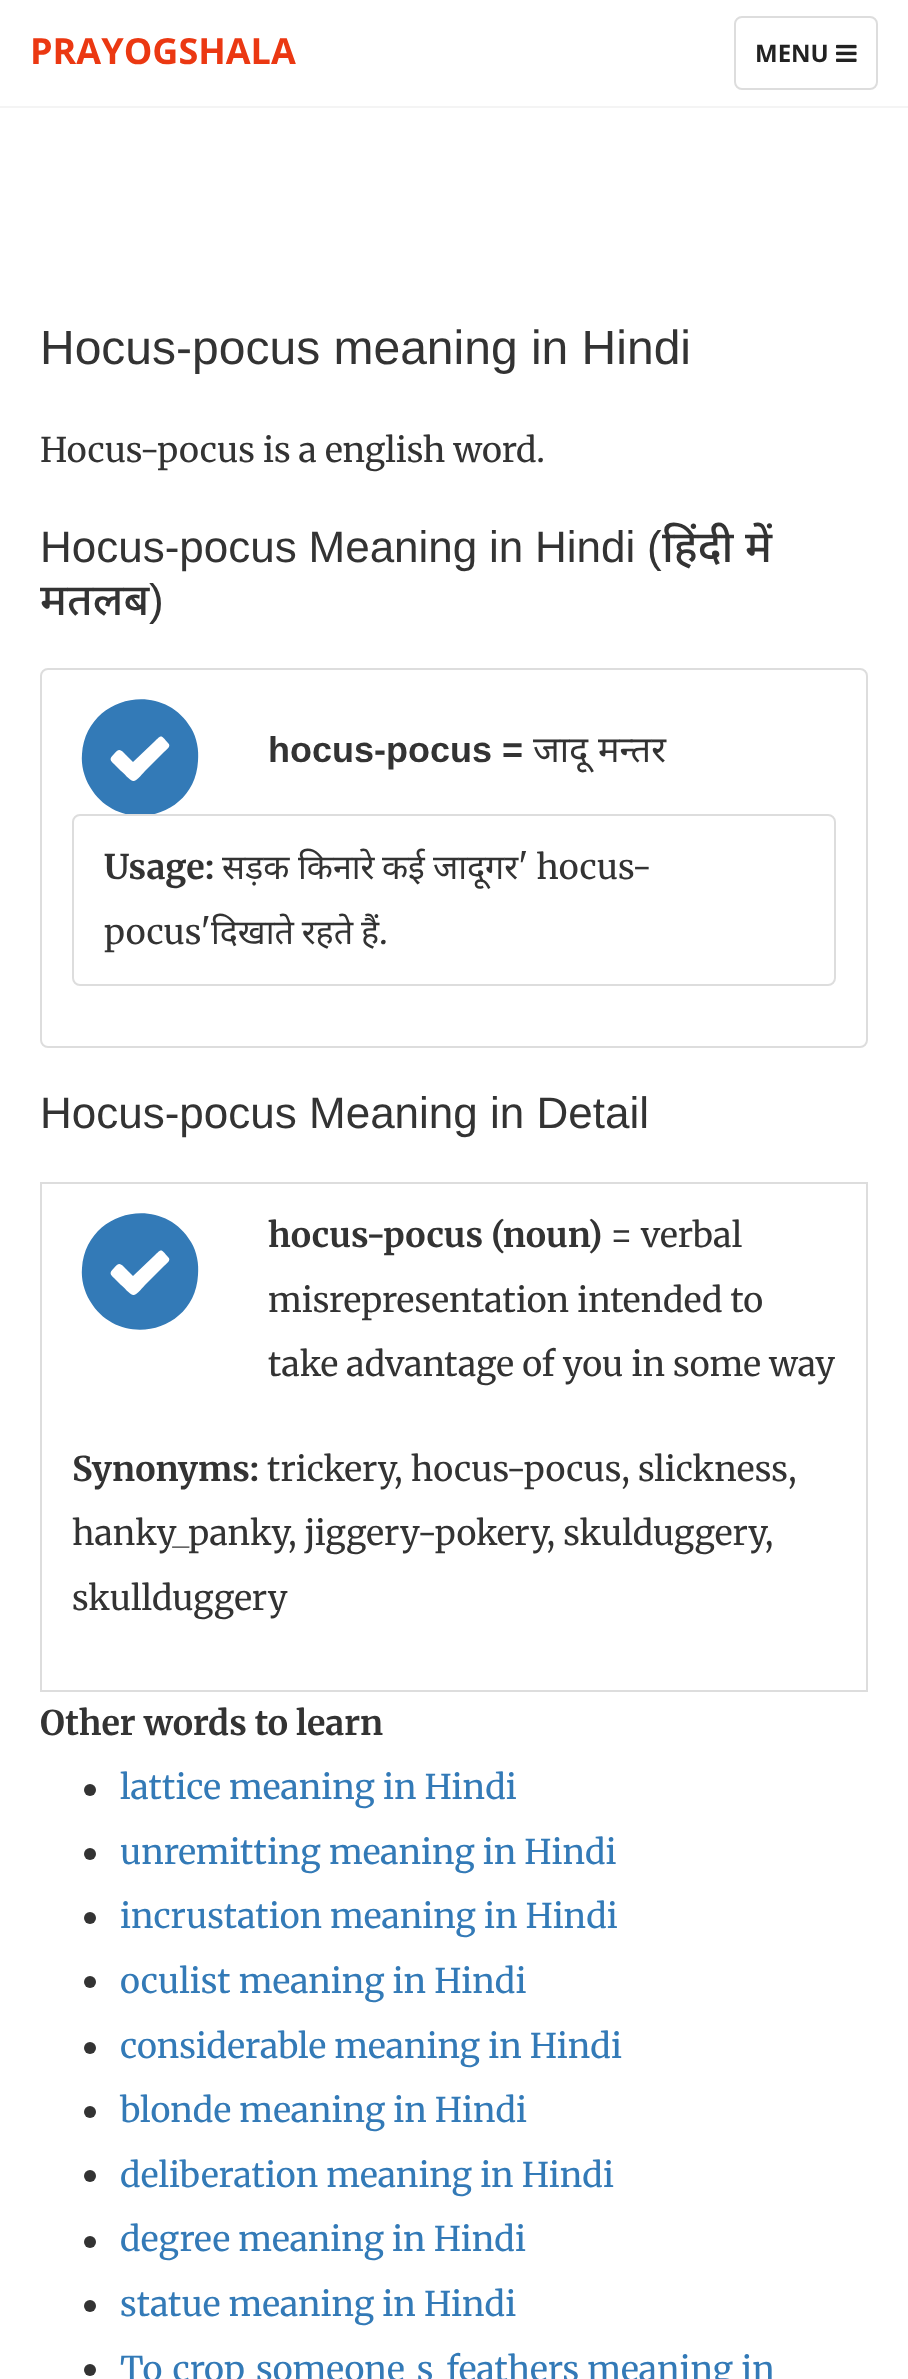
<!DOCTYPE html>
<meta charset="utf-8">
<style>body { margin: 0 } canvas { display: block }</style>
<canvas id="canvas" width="908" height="2379"></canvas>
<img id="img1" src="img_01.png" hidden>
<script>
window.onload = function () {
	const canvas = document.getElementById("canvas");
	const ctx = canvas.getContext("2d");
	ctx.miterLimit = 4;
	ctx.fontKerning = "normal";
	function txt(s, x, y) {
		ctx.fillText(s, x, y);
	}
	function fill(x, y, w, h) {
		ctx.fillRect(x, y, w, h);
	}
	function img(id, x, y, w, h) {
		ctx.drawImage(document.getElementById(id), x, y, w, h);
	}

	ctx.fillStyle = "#FFFFFF";
	fill(0, 0, 908, 2379);
	ctx.fillStyle = "#F4F4F4";
	fill(0, 106, 908, 2);
	ctx.beginPath();
	ctx.roundRect(735, 17, 142, 72, 7);
	ctx.strokeStyle = "#DDDDDD";
	ctx.lineWidth = 2;
	ctx.stroke();
	img("img1", 836, 44, 21, 18);
	ctx.beginPath();
	ctx.roundRect(41, 669, 826, 378, 7);
	ctx.stroke();
	ctx.fillStyle = "#337AB7";
	ctx.beginPath();
	ctx.moveTo(191, 728);
	ctx.bezierCurveTo(197, 738, 199, 750, 198, 761);
	ctx.bezierCurveTo(195, 819, 119, 836, 90, 787);
	ctx.bezierCurveTo(84, 777, 81, 765, 82, 754);
	ctx.bezierCurveTo(86, 696, 162, 679, 191, 728);
	ctx.closePath();
	ctx.fill();
	ctx.fillStyle = "#FFFFFF";
	ctx.beginPath();
	ctx.moveTo(168, 743);
	ctx.bezierCurveTo(172, 746, 166, 750, 164, 752);
	ctx.lineTo(145, 771);
	ctx.bezierCurveTo(144, 772, 136, 782, 133, 781);
	ctx.bezierCurveTo(130, 781, 123, 772, 121, 771);
	ctx.lineTo(114, 764);
	ctx.bezierCurveTo(110, 760, 109, 759, 114, 754);
	ctx.bezierCurveTo(118, 750, 119, 748, 124, 753);
	ctx.lineTo(133, 762);
	ctx.lineTo(154, 742);
	ctx.bezierCurveTo(162, 734, 161, 735, 168, 743);
	ctx.closePath();
	ctx.fill();
	ctx.beginPath();
	ctx.roundRect(73, 815, 762, 170, 7);
	ctx.fill();
	ctx.stroke();
	ctx.strokeRect(41, 1183, 826, 508);
	ctx.fillStyle = "#337AB7";
	ctx.beginPath();
	ctx.moveTo(191, 1242);
	ctx.bezierCurveTo(197, 1252, 199, 1264, 198, 1275);
	ctx.bezierCurveTo(195, 1333, 119, 1350, 90, 1301);
	ctx.bezierCurveTo(84, 1291, 81, 1279, 82, 1268);
	ctx.bezierCurveTo(86, 1210, 162, 1193, 191, 1242);
	ctx.closePath();
	ctx.fill();
	ctx.fillStyle = "#FFFFFF";
	ctx.beginPath();
	ctx.moveTo(168, 1257);
	ctx.bezierCurveTo(172, 1260, 166, 1264, 164, 1266);
	ctx.lineTo(145, 1285);
	ctx.bezierCurveTo(144, 1286, 136, 1296, 133, 1295);
	ctx.bezierCurveTo(130, 1295, 123, 1286, 121, 1285);
	ctx.lineTo(114, 1278);
	ctx.bezierCurveTo(110, 1274, 109, 1273, 114, 1268);
	ctx.bezierCurveTo(118, 1264, 119, 1262, 124, 1267);
	ctx.lineTo(133, 1276);
	ctx.lineTo(154, 1256);
	ctx.bezierCurveTo(162, 1248, 161, 1249, 168, 1257);
	ctx.closePath();
	ctx.fill();
	ctx.fillStyle = "#333333";
	ctx.beginPath();
	ctx.arc(90, 1790, 6, 0, Math.PI * 2);
	ctx.fill();
	ctx.beginPath();
	ctx.arc(90, 1854, 6, 0, Math.PI * 2);
	ctx.fill();
	ctx.beginPath();
	ctx.arc(90, 1918, 6, 0, Math.PI * 2);
	ctx.fill();
	ctx.beginPath();
	ctx.arc(90, 1982, 6, 0, Math.PI * 2);
	ctx.fill();
	ctx.beginPath();
	ctx.arc(90, 2048, 6, 0, Math.PI * 2);
	ctx.fill();
	ctx.beginPath();
	ctx.arc(90, 2112, 6, 0, Math.PI * 2);
	ctx.fill();
	ctx.beginPath();
	ctx.arc(90, 2176, 6, 0, Math.PI * 2);
	ctx.fill();
	ctx.beginPath();
	ctx.arc(90, 2242, 6, 0, Math.PI * 2);
	ctx.fill();
	ctx.beginPath();
	ctx.arc(90, 2306, 6, 0, Math.PI * 2);
	ctx.fill();
	ctx.beginPath();
	ctx.arc(90, 2370, 6, 0, Math.PI * 2);
	ctx.fill();
	ctx.font = "bold 36px Open Sans";
	ctx.fillStyle = "#EB3812";
	txt("PRAYOGSHALA", 30, 64);
	ctx.font = "bold 24px Open Sans";
	ctx.fillStyle = "#222222";
	txt("MENU", 755, 62);
	ctx.font = "48px Liberation Sans";
	ctx.fillStyle = "#333333";
	txt("Hocus-pocus meaning in Hindi", 40, 364);
	ctx.font = "34px Merriweather";
	txt("Hocus-pocus is a english word.", 40, 462);
	ctx.wordSpacing = "-0.5px";
	ctx.font = "44px Liberation Sans";
	txt("Hocus-pocus Meaning in Hindi (", 40, 562);
	ctx.wordSpacing = "0px";
	ctx.font = "500 44px Noto Sans";
	txt("हिंदी", 662, 562);
	txt("में", 745, 562);
	txt("मतलब", 40, 615);
	ctx.font = "44px Liberation Sans";
	txt(")", 149, 615);
	ctx.font = "bold 36px Liberation Sans";
	txt("hocus-pocus =", 268, 762);
	ctx.font = "36px Noto Sans";
	txt("जादू", 533, 762);
	txt("मन्तर", 598, 762);
	ctx.font = "bold 34px Merriweather";
	txt("Usage:", 104, 879);
	ctx.font = "34px Noto Sans";
	txt("सड़क", 222, 879);
	txt("किनारे", 298, 879);
	txt("कई", 382, 879);
	txt("जादूगर", 433, 879);
	ctx.font = "34px Merriweather";
	txt("' hocus-", 518, 879);
	txt("pocus'", 104, 944);
	ctx.wordSpacing = "-1px";
	ctx.font = "34px Noto Sans";
	txt("दिखाते रहते हैं", 211, 944);
	ctx.wordSpacing = "0px";
	ctx.font = "34px Merriweather";
	txt(".", 379, 944);
	ctx.font = "44px Liberation Sans";
	txt("Hocus-pocus Meaning in Detail", 40, 1128);
	ctx.font = "bold 34px Merriweather";
	txt("hocus-pocus (noun)", 268, 1247);
	ctx.font = "34px Merriweather";
	txt("= verbal", 610, 1247);
	txt("misrepresentation intended to", 268, 1312);
	txt("take advantage of you in some way", 268, 1376);
	ctx.font = "bold 34px Merriweather";
	txt("Synonyms:", 72, 1481);
	ctx.font = "34px Merriweather";
	txt("trickery, hocus-pocus, slickness,", 267, 1481);
	txt("hanky_panky, jiggery-pokery, skulduggery,", 72, 1545);
	txt("skullduggery", 72, 1610);
	ctx.font = "bold 34px Merriweather";
	txt("Other words to learn", 40, 1735);
	ctx.font = "34px Merriweather";
	ctx.fillStyle = "#337AB7";
	txt("lattice meaning in Hindi", 120, 1799);
	txt("unremitting meaning in Hindi", 120, 1864);
	txt("incrustation meaning in Hindi", 120, 1928);
	txt("oculist meaning in Hindi", 120, 1993);
	txt("considerable meaning in Hindi", 120, 2058);
	txt("blonde meaning in Hindi", 120, 2122);
	txt("deliberation meaning in Hindi", 120, 2187);
	txt("degree meaning in Hindi", 120, 2251);
	txt("statue meaning in Hindi", 120, 2316);
	txt("To_crop_someone_s_feathers meaning in", 120, 2381);
};
</script>
